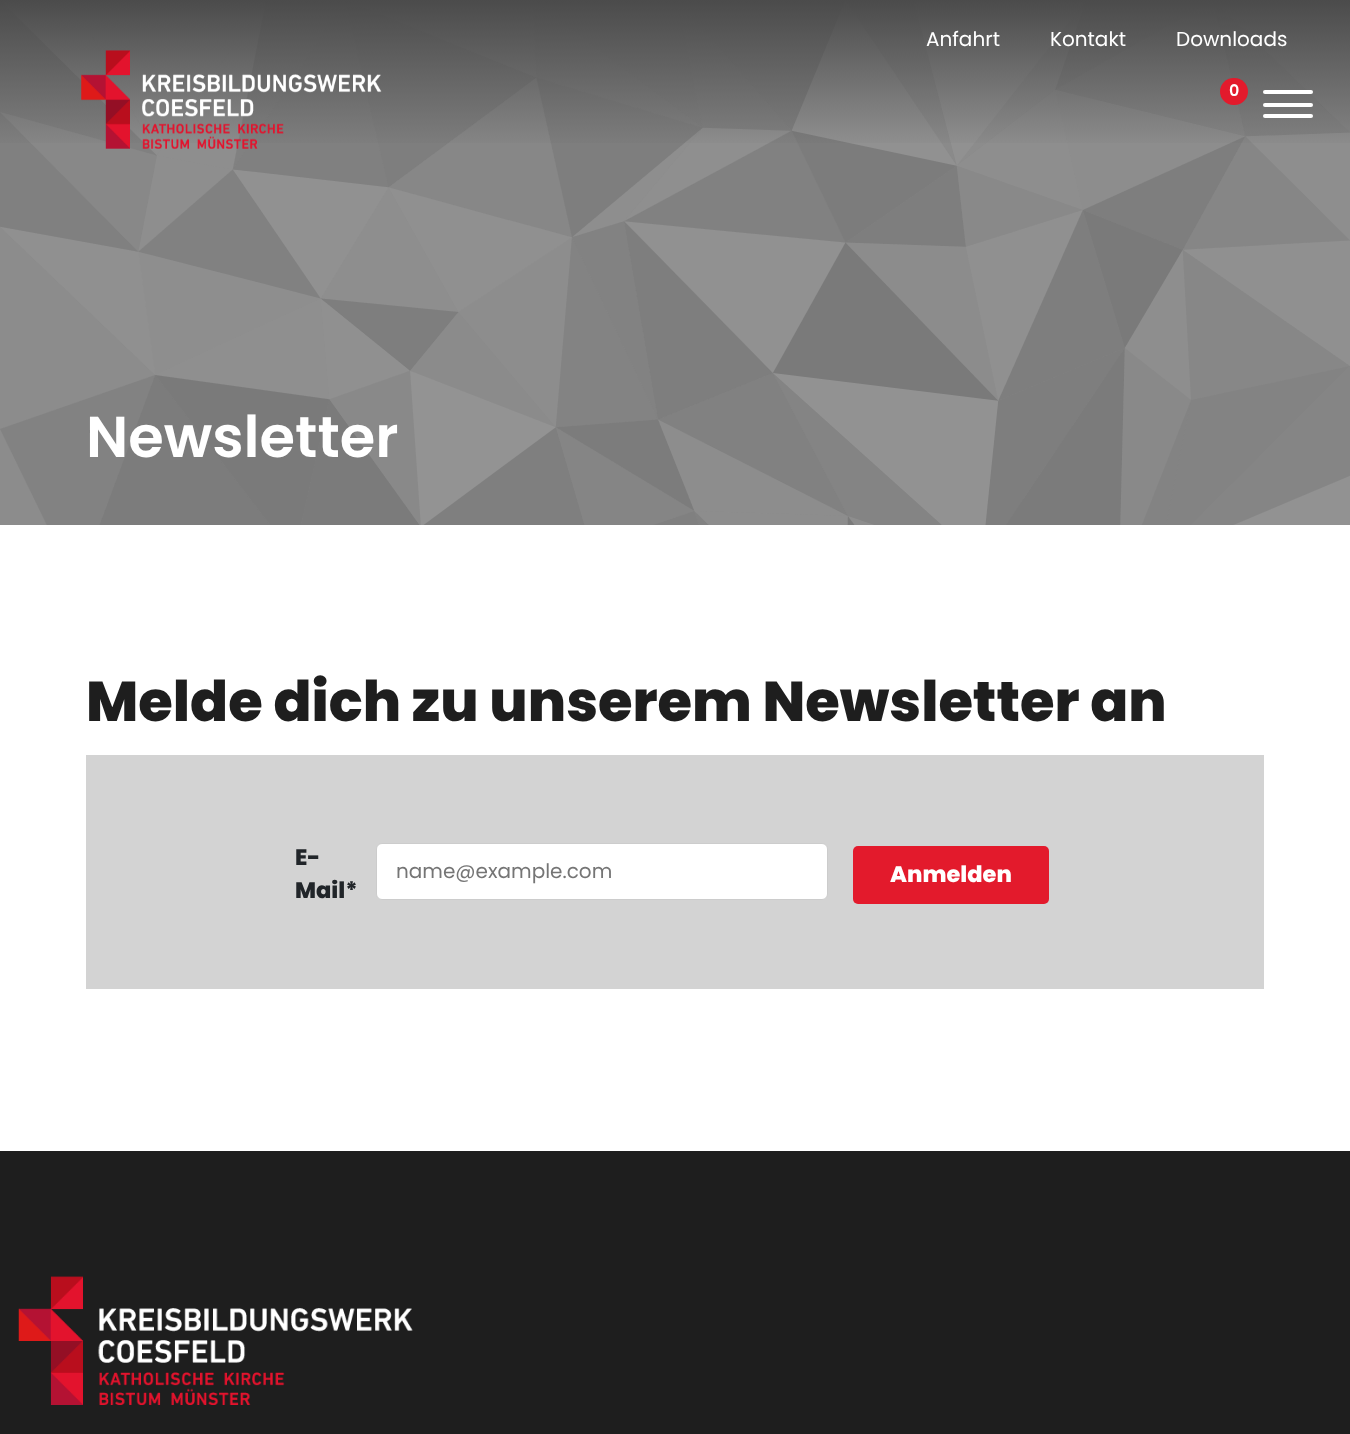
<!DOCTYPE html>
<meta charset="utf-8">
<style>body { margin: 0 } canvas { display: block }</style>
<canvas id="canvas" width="1350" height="1434"></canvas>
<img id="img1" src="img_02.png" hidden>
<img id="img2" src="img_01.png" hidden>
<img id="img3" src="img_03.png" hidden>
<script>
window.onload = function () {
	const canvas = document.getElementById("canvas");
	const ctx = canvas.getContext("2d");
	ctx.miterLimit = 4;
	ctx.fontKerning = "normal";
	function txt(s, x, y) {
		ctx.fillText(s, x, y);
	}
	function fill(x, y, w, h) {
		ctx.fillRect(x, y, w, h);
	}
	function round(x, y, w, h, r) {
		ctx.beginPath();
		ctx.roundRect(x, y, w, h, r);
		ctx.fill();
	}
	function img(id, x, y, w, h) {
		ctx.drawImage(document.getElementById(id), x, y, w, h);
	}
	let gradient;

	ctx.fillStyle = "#FFFFFF";
	fill(0, 0, 1350, 1434);
	ctx.fillStyle = "#939393";
	fill(0, 1, 1350, 524);
	img("img1", 0, 1, 1350, 524);
	gradient = ctx.createLinearGradient(675, 149, 675, 0);
	gradient.addColorStop(0, "rgba(75, 75, 75, 0)");
	gradient.addColorStop(1, "#4B4B4B");
	ctx.fillStyle = gradient;
	fill(0, 0, 1350, 143);
	img("img2", 81, 50, 301, 99);
	ctx.fillStyle = "#E31A2C";
	round(1220, 78, 28, 27, 13.5);
	ctx.fillStyle = "#FFFFFF";
	round(1263, 90, 50, 4, 2);
	round(1263, 103, 50, 4, 2);
	round(1263, 114, 50, 4, 2);
	ctx.fillStyle = "#D3D3D3";
	fill(86, 755, 1178, 234);
	ctx.fillStyle = "#FFFFFF";
	ctx.beginPath();
	ctx.roundRect(376.5, 843.5, 451, 56, 5.5);
	ctx.fill();
	ctx.strokeStyle = "#CCCCCC";
	ctx.stroke();
	ctx.fillStyle = "#E31A2C";
	round(853, 846, 196, 58, 5);
	ctx.fillStyle = "#1E1E1E";
	fill(0, 1151, 1350, 283);
	img("img3", 18, 1276, 395, 129);
	ctx.font = "20px Poppins";
	ctx.fillStyle = "#FFFFFF";
	txt("Anfahrt", 926, 46);
	txt("Kontakt", 1050, 46);
	txt("Downloads", 1176, 46);
	ctx.font = "600 16px Poppins";
	txt("0", 1229, 96);
	ctx.font = "600 57.5px Poppins";
	txt("Newsletter", 86, 457);
	ctx.font = "800 56px Poppins";
	ctx.fillStyle = "#1E1E1E";
	txt("Melde dich zu unserem Newsletter an", 86, 721);
	ctx.font = "800 22.5px Poppins";
	ctx.fillStyle = "#212529";
	txt("E-", 295, 865);
	txt("Mail*", 295, 898);
	ctx.font = "20px Poppins";
	ctx.fillStyle = "#757575";
	txt("name@example.com", 396, 878);
	ctx.font = "800 22.5px Poppins";
	ctx.fillStyle = "#FFFFFF";
	txt("Anmelden", 890, 882);
};
</script>
